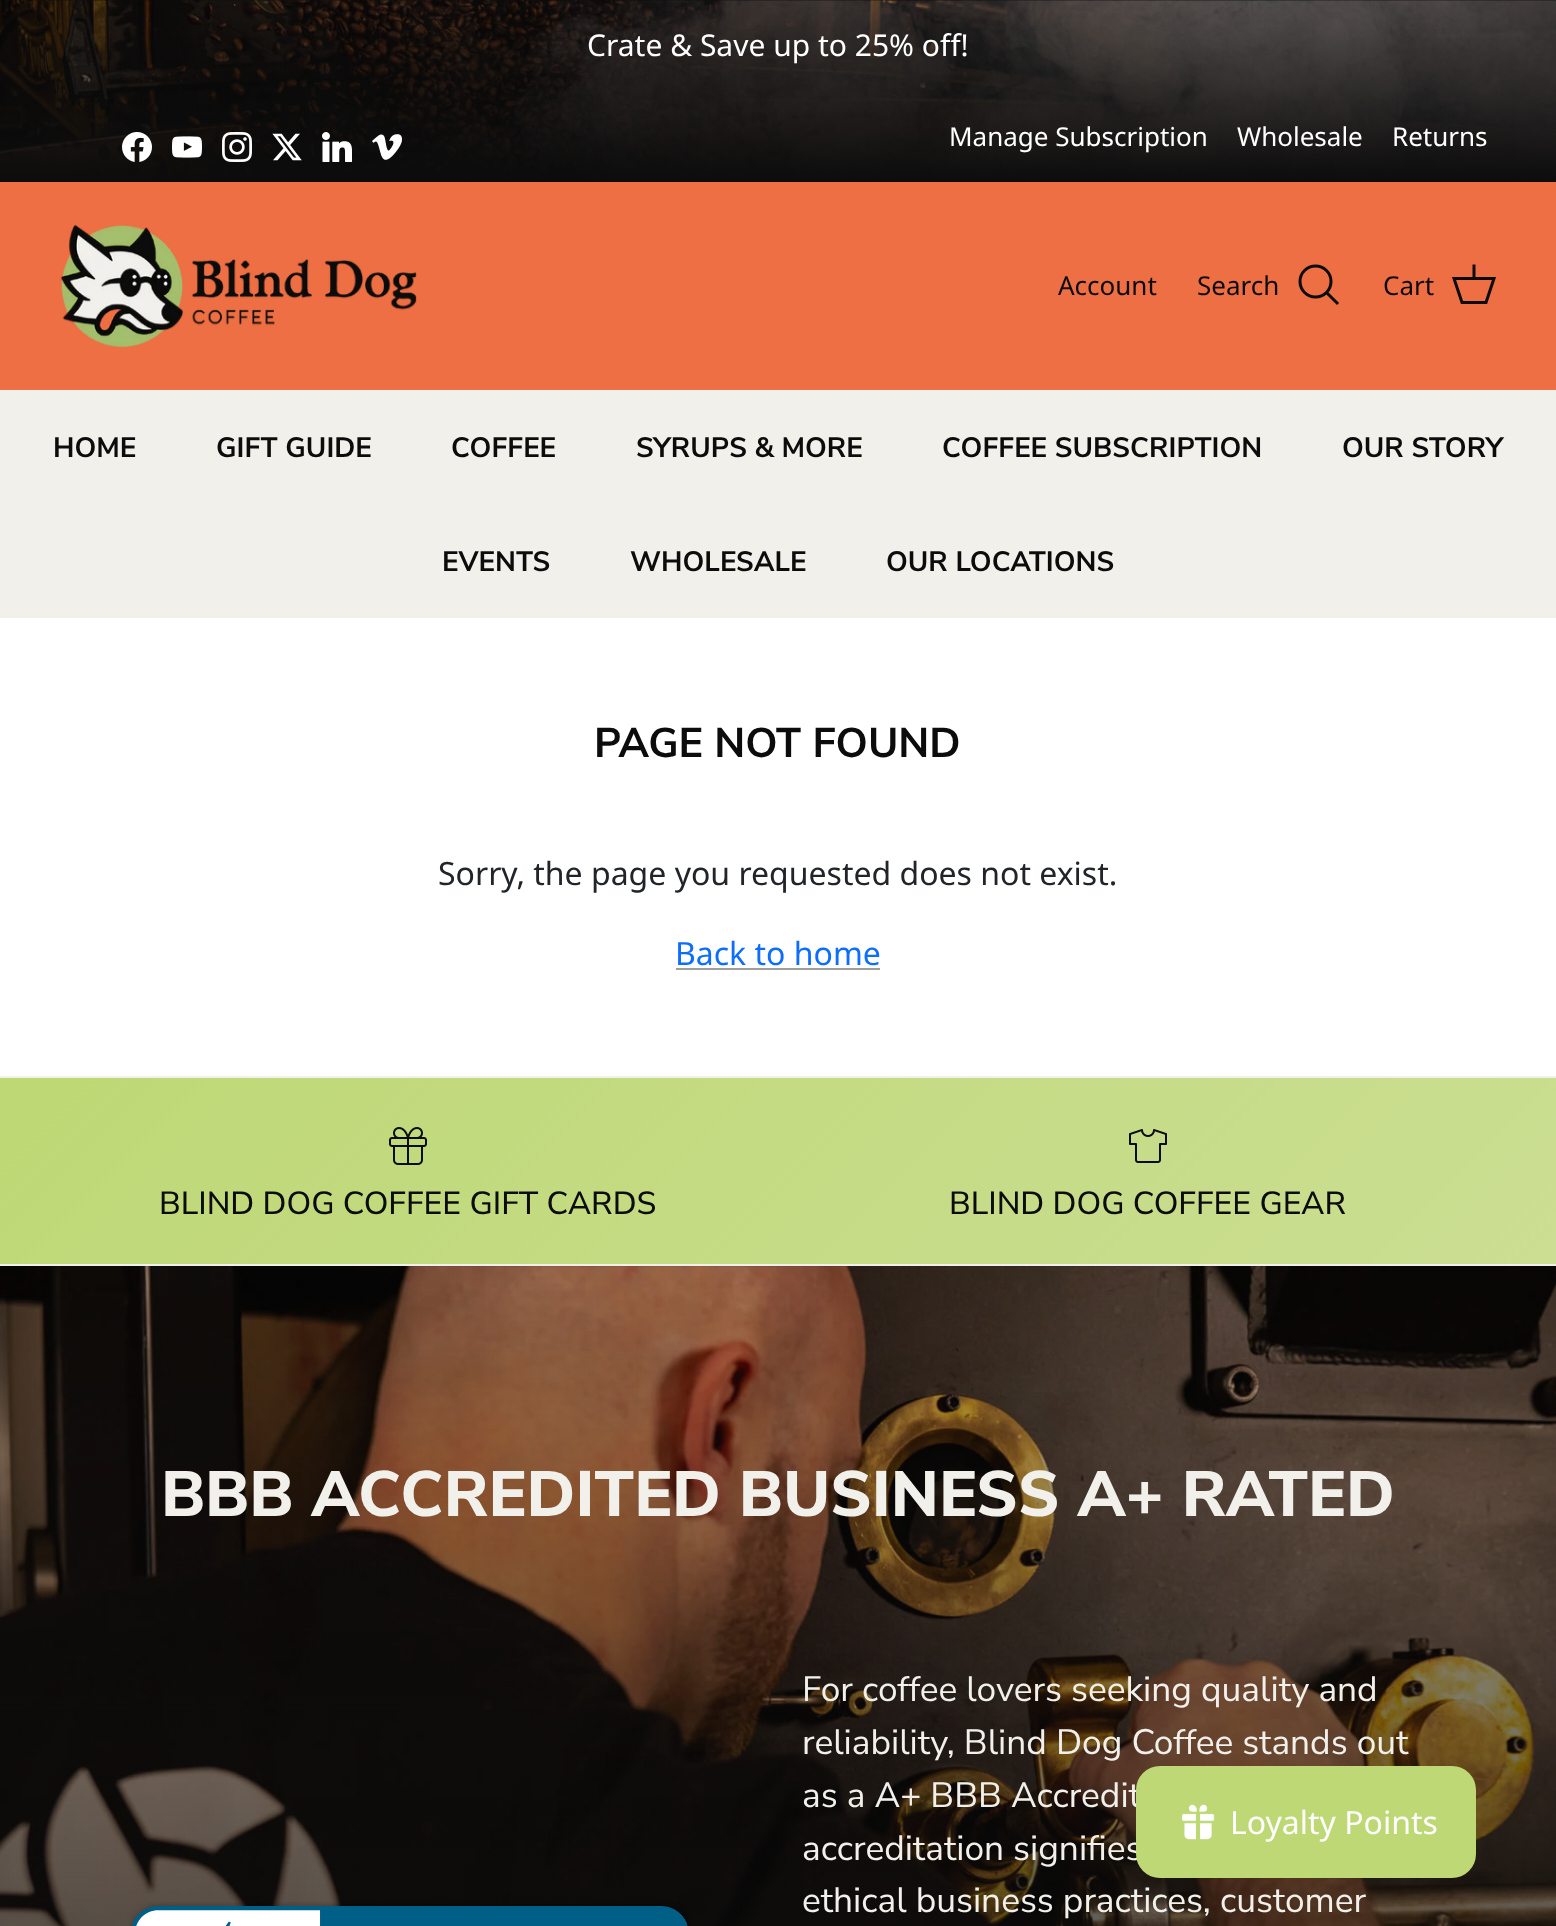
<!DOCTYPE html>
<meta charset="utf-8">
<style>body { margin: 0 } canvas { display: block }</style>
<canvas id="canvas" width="1556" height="1926"></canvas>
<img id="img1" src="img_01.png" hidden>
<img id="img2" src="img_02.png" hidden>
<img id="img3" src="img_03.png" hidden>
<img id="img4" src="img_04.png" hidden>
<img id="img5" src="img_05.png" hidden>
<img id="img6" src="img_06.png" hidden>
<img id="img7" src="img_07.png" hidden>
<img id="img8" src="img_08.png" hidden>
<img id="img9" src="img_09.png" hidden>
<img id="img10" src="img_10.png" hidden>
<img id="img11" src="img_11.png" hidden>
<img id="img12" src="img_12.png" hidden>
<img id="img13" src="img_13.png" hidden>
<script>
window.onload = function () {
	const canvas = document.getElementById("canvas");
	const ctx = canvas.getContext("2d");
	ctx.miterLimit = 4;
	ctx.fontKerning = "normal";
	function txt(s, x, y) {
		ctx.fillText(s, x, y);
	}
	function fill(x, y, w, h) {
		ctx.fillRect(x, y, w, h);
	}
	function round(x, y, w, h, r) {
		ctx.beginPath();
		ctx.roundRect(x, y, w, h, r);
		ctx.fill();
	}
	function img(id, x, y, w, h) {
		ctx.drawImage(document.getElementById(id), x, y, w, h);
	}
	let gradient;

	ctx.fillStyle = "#FFFFFF";
	fill(0, 0, 1556, 1926);
	img("img1", 0, 0, 1556, 182);
	img("img2", 122, 132, 30, 30);
	img("img3", 172, 136, 30, 22);
	img("img4", 222, 132, 30, 30);
	img("img5", 272, 133, 30, 28);
	img("img6", 322, 132, 30, 30);
	img("img7", 372, 134, 30, 26);
	ctx.fillStyle = "#EE6F43";
	fill(0, 182, 1556, 208);
	img("img8", 60, 224, 357, 124);
	ctx.beginPath();
	ctx.arc(1315.5, 281.5, 15.5, 0, Math.PI * 2);
	ctx.strokeStyle = "#0C0C0C";
	ctx.lineWidth = 3;
	ctx.stroke();
	ctx.beginPath();
	ctx.moveTo(1328, 294);
	ctx.lineTo(1337, 303);
	ctx.lineCap = "square";
	ctx.stroke();
	ctx.beginPath();
	ctx.moveTo(1454, 278.5);
	ctx.lineTo(1494, 278.5);
	ctx.lineTo(1486, 302.5);
	ctx.lineTo(1462, 302.5);
	ctx.closePath();
	ctx.lineCap = "butt";
	ctx.stroke();
	ctx.beginPath();
	ctx.moveTo(1474, 278);
	ctx.lineTo(1474, 266);
	ctx.lineCap = "square";
	ctx.stroke();
	ctx.fillStyle = "#F2F0EB";
	fill(0, 390, 1556, 228);
	ctx.fillStyle = "#9E9E9E";
	fill(676, 968, 204, 2);
	gradient = ctx.createLinearGradient(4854, 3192, 1370, -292);
	gradient.addColorStop(0, "#F2F0EB");
	gradient.addColorStop(1, "#BED875");
	ctx.fillStyle = gradient;
	fill(0, 1078, 1556, 186);
	ctx.fillStyle = "#F2F0EB";
	fill(0, 1076, 1556, 2);
	img("img9", 389, 1127, 38, 38);
	img("img10", 1129, 1129, 38, 34);
	img("img11", 0, 1266, 1556, 660);
	fill(0, 1264, 1556, 2);
	img("img12", 129, 1902, 559, 24);
	ctx.font = "30px Noto Sans";
	ctx.fillStyle = "#FFFFFF";
	txt("Crate & Save up to 25% off!", 587, 56);
	ctx.font = "26px Noto Sans";
	txt("Manage Subscription", 949, 146);
	txt("Wholesale", 1237, 146);
	txt("Returns", 1392, 146);
	ctx.fillStyle = "#0C0C0C";
	txt("Account", 1058, 295);
	txt("Search", 1197, 295);
	txt("Cart", 1383, 295);
	ctx.font = "bold 28px Nunito Sans";
	txt("HOME", 53, 457);
	txt("GIFT GUIDE", 216, 457);
	txt("COFFEE", 451, 457);
	txt("SYRUPS & MORE", 636, 457);
	txt("COFFEE SUBSCRIPTION", 942, 457);
	txt("OUR STORY", 1342, 457);
	txt("EVENTS", 442, 571);
	txt("WHOLESALE", 630, 571);
	txt("OUR LOCATIONS", 886, 571);
	ctx.font = "bold 41.5px Nunito Sans";
	txt("PAGE NOT FOUND", 594, 757);
	ctx.font = "32px Noto Sans";
	ctx.fillStyle = "#212529";
	txt("Sorry, the page you requested does not exist.", 438, 885);
	ctx.fillStyle = "#0D6EFD";
	txt("Back to home", 675, 965);
	ctx.font = "500 32px Nunito Sans";
	ctx.fillStyle = "#0C0C0C";
	txt("BLIND DOG COFFEE GIFT CARDS", 159, 1214);
	txt("BLIND DOG COFFEE GEAR", 949, 1214);
	ctx.font = "800 64px Nunito Sans";
	ctx.fillStyle = "#F2F0EB";
	txt("BBB ACCREDITED BUSINESS A+ RATED", 161, 1516);
	ctx.font = "35.25px Nunito Sans";
	txt("For coffee lovers seeking quality and", 802, 1701);
	txt("reliability, Blind Dog Coffee stands out", 802, 1754);
	txt("as a A+ BBB Accredit", 802, 1807);
	txt("accreditation signifies", 802, 1860);
	txt("ethical business practices, customer", 802, 1912);
	ctx.fillStyle = "#BED875";
	round(1136, 1766, 340, 112, 24);
	img("img13", 1181, 1804, 34, 36);
	ctx.font = "32px Noto Sans";
	ctx.fillStyle = "#FFFFFF";
	txt("Loyalty Points", 1230, 1834);
};
</script>
